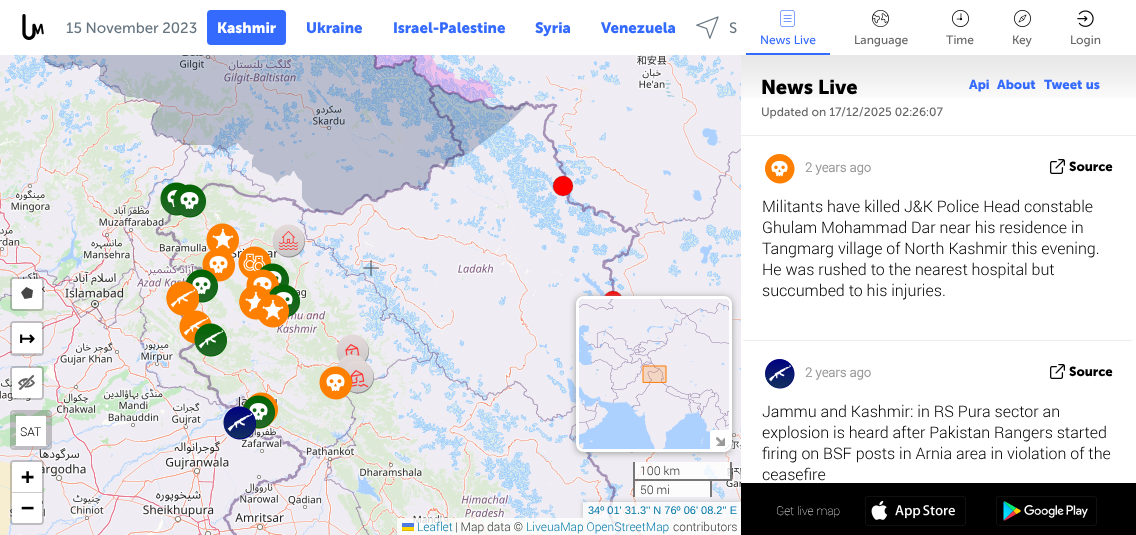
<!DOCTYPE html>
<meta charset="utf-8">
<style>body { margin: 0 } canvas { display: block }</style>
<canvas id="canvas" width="1136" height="535"></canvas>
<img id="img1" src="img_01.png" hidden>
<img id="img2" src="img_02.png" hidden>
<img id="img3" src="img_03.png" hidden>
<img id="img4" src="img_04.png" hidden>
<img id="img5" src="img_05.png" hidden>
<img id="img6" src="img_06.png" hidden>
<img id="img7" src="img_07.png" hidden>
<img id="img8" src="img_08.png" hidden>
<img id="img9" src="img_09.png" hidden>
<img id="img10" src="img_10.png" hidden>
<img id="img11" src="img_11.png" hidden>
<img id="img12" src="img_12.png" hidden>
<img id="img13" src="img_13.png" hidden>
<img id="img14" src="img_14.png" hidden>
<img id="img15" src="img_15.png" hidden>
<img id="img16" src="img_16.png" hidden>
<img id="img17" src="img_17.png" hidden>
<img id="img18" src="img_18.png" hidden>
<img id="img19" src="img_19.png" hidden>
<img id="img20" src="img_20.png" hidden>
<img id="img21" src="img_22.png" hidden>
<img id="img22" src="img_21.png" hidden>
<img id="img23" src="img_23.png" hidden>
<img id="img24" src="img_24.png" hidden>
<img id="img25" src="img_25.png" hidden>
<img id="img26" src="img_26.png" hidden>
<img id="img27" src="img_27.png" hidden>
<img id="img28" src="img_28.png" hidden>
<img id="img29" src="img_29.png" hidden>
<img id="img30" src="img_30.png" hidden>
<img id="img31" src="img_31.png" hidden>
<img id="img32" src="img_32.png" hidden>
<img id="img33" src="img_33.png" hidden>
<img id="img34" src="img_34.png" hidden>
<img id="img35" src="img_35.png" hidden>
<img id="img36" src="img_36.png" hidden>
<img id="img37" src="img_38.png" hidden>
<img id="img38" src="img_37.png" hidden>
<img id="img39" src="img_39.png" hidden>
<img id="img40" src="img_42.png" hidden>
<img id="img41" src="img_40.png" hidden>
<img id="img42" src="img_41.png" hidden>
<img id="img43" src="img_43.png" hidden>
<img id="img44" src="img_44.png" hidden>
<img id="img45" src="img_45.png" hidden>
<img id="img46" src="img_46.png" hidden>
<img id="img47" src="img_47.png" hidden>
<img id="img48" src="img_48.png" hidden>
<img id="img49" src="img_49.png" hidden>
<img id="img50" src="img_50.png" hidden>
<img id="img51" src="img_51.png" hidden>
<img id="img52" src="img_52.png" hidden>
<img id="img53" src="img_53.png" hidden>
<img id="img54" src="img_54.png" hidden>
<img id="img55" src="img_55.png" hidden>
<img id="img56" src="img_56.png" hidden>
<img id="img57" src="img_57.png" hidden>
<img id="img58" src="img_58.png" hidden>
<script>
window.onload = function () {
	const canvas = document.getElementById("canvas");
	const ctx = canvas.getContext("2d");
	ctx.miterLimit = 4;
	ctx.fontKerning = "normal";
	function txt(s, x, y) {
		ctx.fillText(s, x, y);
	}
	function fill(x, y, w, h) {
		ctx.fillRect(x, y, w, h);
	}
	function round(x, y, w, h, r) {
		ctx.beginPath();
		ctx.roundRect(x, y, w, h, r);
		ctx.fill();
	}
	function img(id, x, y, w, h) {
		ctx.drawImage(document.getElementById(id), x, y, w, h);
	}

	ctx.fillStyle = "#FFFFFF";
	fill(0, 0, 1136, 535);
	img("img1", 22, 14, 22, 26);
	ctx.fillStyle = "#346AFE";
	round(207, 10, 79, 35, 4);
	img("img2", 696, 16, 23, 23);
	img("img3", 0, 55, 100, 182);
	img("img4", 100, 55, 256, 182);
	img("img5", 356, 55, 256, 182);
	img("img6", 612, 55, 129, 182);
	img("img7", 0, 237, 100, 256);
	img("img8", 100, 237, 256, 256);
	img("img9", 356, 237, 256, 256);
	img("img10", 612, 237, 129, 256);
	img("img11", 0, 493, 100, 42);
	img("img12", 100, 493, 256, 42);
	img("img13", 356, 493, 256, 42);
	img("img14", 612, 493, 129, 42);
	img("img15", 44, 55, 485, 159);
	img("img16", 363, 260, 16, 16);
	img("img17", 160, 182, 26, 34);
	ctx.fillStyle = "#FF0000";
	ctx.beginPath();
	ctx.arc(563, 186, 10, 0, Math.PI * 2);
	ctx.fill();
	ctx.strokeStyle = "#000000";
	ctx.lineWidth = 0.2;
	ctx.stroke();
	img("img18", 173, 184, 33, 34);
	img("img19", 206, 223, 33, 32);
	img("img20", 272, 224, 33, 34);
	img("img21", 202, 248, 33, 34);
	img("img22", 185, 269, 33, 34);
	img("img23", 238, 246, 33, 33);
	img("img24", 259, 263, 30, 23);
	img("img25", 166, 281, 33, 33);
	img("img26", 246, 269, 33, 25);
	img("img27", 269, 284, 31, 34);
	img("img28", 239, 285, 31, 33);
	img("img29", 166, 287, 33, 29);
	img("img30", 239, 285, 31, 33);
	img("img31", 179, 310, 33, 34);
	img("img32", 239, 291, 31, 29);
	img("img33", 256, 294, 33, 34);
	ctx.beginPath();
	ctx.arc(613, 301, 10, 0, Math.PI * 2);
	ctx.fill();
	ctx.stroke();
	img("img34", 194, 323, 33, 34);
	img("img35", 336, 334, 33, 28);
	img("img36", 336, 354, 32, 15);
	img("img37", 343, 361, 31, 33);
	img("img38", 319, 366, 33, 34);
	img("img39", 247, 392, 31, 32);
	img("img40", 243, 397, 30, 32);
	img("img41", 243, 395, 32, 34);
	img("img42", 223, 406, 33, 34);
	ctx.beginPath();
	ctx.roundRect(11, 278, 32, 32, 3);
	ctx.strokeStyle = "rgba(0, 0, 0, 0.2)";
	ctx.lineWidth = 2;
	ctx.stroke();
	ctx.fillStyle = "#FFFFFF";
	round(12, 279, 30, 30, 2);
	img("img43", 21, 287, 12, 12);
	ctx.beginPath();
	ctx.roundRect(11, 322, 32, 33, 3);
	ctx.stroke();
	ctx.beginPath();
	ctx.roundRect(12, 323, 30, 31, [2, 2, 0, 0]);
	ctx.fill();
	ctx.fillStyle = "#CCCCCC";
	fill(12, 353, 30, 1);
	ctx.beginPath();
	ctx.roundRect(11, 367, 32, 32, 3);
	ctx.stroke();
	ctx.fillStyle = "#FFFFFF";
	round(12, 368, 30, 30, 2);
	img("img44", 18, 375, 17, 15);
	ctx.beginPath();
	ctx.roundRect(11, 411, 40, 38, 3);
	ctx.stroke();
	ctx.beginPath();
	ctx.roundRect(13, 413, 36, 34, 3);
	ctx.stroke();
	ctx.beginPath();
	ctx.moveTo(16, 416);
	ctx.lineTo(46, 416);
	ctx.lineTo(46, 446);
	ctx.lineTo(16, 446);
	ctx.lineTo(16, 444);
	ctx.closePath();
	ctx.fill();
	ctx.fillStyle = "rgba(0, 0, 0, 0.2)";
	fill(15, 414, 32, 2);
	fill(46, 415, 2, 30);
	fill(14, 415, 2, 30);
	ctx.beginPath();
	ctx.roundRect(11, 461, 32, 63, 3);
	ctx.stroke();
	ctx.fillStyle = "#FFFFFF";
	ctx.beginPath();
	ctx.roundRect(12, 462, 30, 31, [2, 2, 0, 0]);
	ctx.fill();
	ctx.fillStyle = "#CCCCCC";
	fill(12, 492, 30, 1);
	ctx.fillStyle = "#FFFFFF";
	ctx.beginPath();
	ctx.roundRect(12, 493, 30, 30, [0, 0, 2, 2]);
	ctx.fill();
	ctx.fillStyle = "#999999";
	ctx.filter = "blur(3.5px)";
	ctx.beginPath();
	ctx.roundRect(576, 297, 156, 156, 8);
	ctx.fill();
	ctx.filter = "none";
	ctx.beginPath();
	ctx.roundRect(577.5, 297.5, 153, 153, 6.5);
	ctx.strokeStyle = "#FFFFFF";
	ctx.lineWidth = 3;
	ctx.stroke();
	img("img45", 579, 299, 115, 150);
	img("img46", 694, 299, 35, 150);
	ctx.fillStyle = "rgba(255, 120, 0, 0.2)";
	fill(643, 366, 23, 16);
	ctx.beginPath();
	ctx.moveTo(643, 382);
	ctx.lineTo(643, 366);
	ctx.lineTo(666, 366);
	ctx.lineTo(666, 382);
	ctx.closePath();
	ctx.strokeStyle = "#FF7800";
	ctx.lineWidth = 1;
	ctx.lineCap = "round";
	ctx.lineJoin = "round";
	ctx.stroke();
	ctx.fillStyle = "#FFFFFF";
	ctx.beginPath();
	ctx.roundRect(710, 430, 19, 19, [2, 0, 5, 0]);
	ctx.fill();
	img("img47", 716, 436, 9, 10);
	ctx.fillStyle = "rgba(255, 255, 255, 0.8)";
	fill(635, 462, 95, 17);
	ctx.fillStyle = "#777777";
	fill(730, 462, 2, 19);
	fill(712, 479, 20, 2);
	fill(633, 462, 2, 19);
	ctx.fillStyle = "rgba(255, 255, 255, 0.8)";
	fill(635, 481, 75, 16);
	ctx.fillStyle = "#777777";
	fill(633, 479, 79, 2);
	fill(710, 479, 2, 18);
	fill(633, 479, 2, 18);
	ctx.save();
	ctx.beginPath();
	ctx.moveTo(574, 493);
	ctx.lineTo(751, 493);
	ctx.lineTo(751, 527);
	ctx.lineTo(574, 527);
	ctx.closePath();
	ctx.moveTo(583, 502);
	ctx.lineTo(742, 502);
	ctx.lineTo(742, 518);
	ctx.lineTo(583, 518);
	ctx.closePath();
	ctx.clip("evenodd");
	ctx.fillStyle = "#BBBBBB";
	ctx.filter = "blur(2.5px)";
	ctx.beginPath();
	ctx.rect(583, 502, 159, 16);
	ctx.fill();
	ctx.filter = "none";
	ctx.restore();
	ctx.fillStyle = "rgba(255, 255, 255, 0.7)";
	fill(583, 502, 158, 16);
	ctx.fillStyle = "rgba(255, 255, 255, 0.8)";
	fill(397, 518, 344, 17);
	ctx.fillStyle = "#4C7BE1";
	fill(402, 523, 12, 4);
	ctx.fillStyle = "#FFD500";
	fill(402, 527, 12, 3);
	ctx.fillStyle = "#E0BC00";
	fill(402, 530, 12, 1);
	ctx.fillStyle = "#346AFE";
	fill(746, 53, 84, 2);
	img("img48", 780, 10, 15, 17);
	img("img49", 872, 10, 17, 17);
	img("img50", 952, 10, 17, 17);
	img("img51", 1014, 10, 17, 17);
	img("img52", 1077, 10, 17, 17);
	img("img53", 741, 55, 395, 43);
	ctx.fillStyle = "#EDEDED";
	fill(741, 135, 395, 1);
	ctx.fillStyle = "#ECECEC";
	ctx.beginPath();
	ctx.moveTo(1130, 341);
	ctx.bezierCurveTo(1132, 341, 1133, 340, 1133, 338);
	ctx.bezierCurveTo(1133, 339, 1132, 340, 1130, 340);
	ctx.lineTo(744, 340);
	ctx.lineTo(742, 341);
	ctx.lineTo(744, 341);
	ctx.closePath();
	ctx.fill();
	img("img54", 765, 154, 30, 30);
	img("img55", 1050, 159, 15, 15);
	img("img56", 765, 359, 30, 30);
	img("img55", 1050, 364, 15, 15);
	ctx.fillStyle = "#000000";
	fill(741, 483, 395, 52);
	img("img57", 865, 496, 101, 30);
	img("img58", 996, 496, 101, 30);
	ctx.font = "15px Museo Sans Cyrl";
	ctx.fillStyle = "#66757F";
	txt("15 November 2023", 66, 33);
	ctx.font = "bold 15px Museo Sans Cyrl";
	ctx.fillStyle = "#FFFFFF";
	txt("Kashmir", 217, 33);
	ctx.fillStyle = "#346AFE";
	txt("Ukraine", 306, 33);
	txt("Israel-Palestine", 393, 33);
	txt("Syria", 535, 33);
	txt("Venezuela", 601, 33);
	ctx.font = "15px Museo Sans Cyrl";
	ctx.fillStyle = "#66757F";
	txt("S", 729, 33);
	ctx.font = "bold 19px DejaVu Sans";
	ctx.fillStyle = "#000000";
	txt("↦", 19, 345);
	ctx.font = "300 12px Roboto";
	txt("SAT", 20, 436);
	ctx.font = "bold 22px DejaVu Sans Mono";
	txt("+", 21, 484);
	txt("−", 21, 515);
	ctx.font = "300 12px Roboto";
	ctx.fillStyle = "#333333";
	txt("100 km", 640, 475);
	txt("50 mi", 640, 494);
	ctx.font = "11px Liberation Sans";
	ctx.fillStyle = "#0078A8";
	txt("34º 01' 31.3'' N 76º 06' 08.2'' E", 588, 514);
	ctx.font = "300 12px Roboto";
	txt("Leaflet", 417, 531);
	ctx.fillStyle = "#333333";
	txt("| Map data ©", 455, 531);
	ctx.fillStyle = "#0078A8";
	txt("LiveuaMap OpenStreetMap", 526, 531);
	ctx.fillStyle = "#333333";
	txt("contributors", 673, 531);
	ctx.font = "12px Museo Sans Cyrl";
	ctx.fillStyle = "#346AFE";
	txt("News Live", 760, 44);
	ctx.fillStyle = "#666666";
	txt("Language", 854, 44);
	txt("Time", 946, 44);
	txt("Key", 1012, 44);
	txt("Login", 1070, 44);
	ctx.font = "bold 20px Museo Sans Cyrl";
	ctx.fillStyle = "#000000";
	txt("News Live", 761, 94);
	ctx.font = "12px Museo Sans Cyrl";
	ctx.fillStyle = "#666666";
	txt("Updated on 17/12/2025 02:26:07", 761, 116);
	ctx.font = "bold 13px Museo Sans Cyrl";
	ctx.fillStyle = "#346AFE";
	txt("Api", 969, 89);
	txt("About", 997, 89);
	txt("Tweet us", 1044, 89);
	ctx.font = "bold 13px Roboto";
	ctx.fillStyle = "#999999";
	txt("2 years ago", 805, 172);
	ctx.font = "bold 13px Museo Sans Cyrl";
	ctx.fillStyle = "#000000";
	txt("Source", 1069, 171);
	ctx.font = "300 16px Roboto";
	txt("Militants have killed J&K Police Head constable", 762, 212);
	txt("Ghulam Mohammad Dar near his residence in", 762, 233);
	txt("Tangmarg village of North Kashmir this evening.", 762, 254);
	txt("He was rushed to the nearest hospital but", 762, 275);
	txt("succumbed to his injuries.", 762, 296);
	ctx.font = "bold 13px Roboto";
	ctx.fillStyle = "#999999";
	txt("2 years ago", 805, 377);
	ctx.font = "bold 13px Museo Sans Cyrl";
	ctx.fillStyle = "#000000";
	txt("Source", 1069, 376);
	ctx.font = "300 16px Roboto";
	txt("Jammu and Kashmir: in RS Pura sector an", 762, 417);
	txt("explosion is heard after Pakistan Rangers started", 762, 438);
	txt("firing on BSF posts in Arnia area in violation of the", 762, 459);
	txt("ceasefire", 762, 480);
	ctx.font = "100 12px Roboto";
	ctx.fillStyle = "#FFFFFF";
	txt("Get live map", 776, 515);
};
</script>
